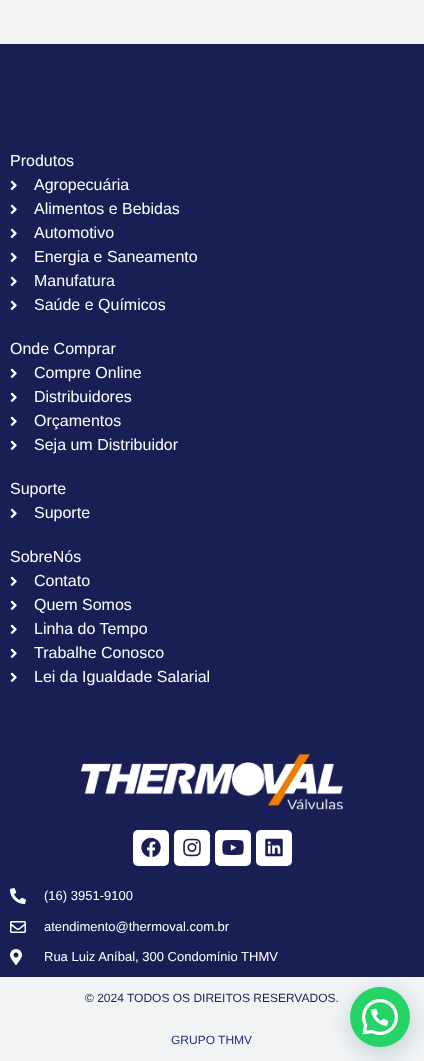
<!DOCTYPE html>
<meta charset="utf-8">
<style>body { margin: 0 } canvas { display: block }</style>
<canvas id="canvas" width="424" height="1061"></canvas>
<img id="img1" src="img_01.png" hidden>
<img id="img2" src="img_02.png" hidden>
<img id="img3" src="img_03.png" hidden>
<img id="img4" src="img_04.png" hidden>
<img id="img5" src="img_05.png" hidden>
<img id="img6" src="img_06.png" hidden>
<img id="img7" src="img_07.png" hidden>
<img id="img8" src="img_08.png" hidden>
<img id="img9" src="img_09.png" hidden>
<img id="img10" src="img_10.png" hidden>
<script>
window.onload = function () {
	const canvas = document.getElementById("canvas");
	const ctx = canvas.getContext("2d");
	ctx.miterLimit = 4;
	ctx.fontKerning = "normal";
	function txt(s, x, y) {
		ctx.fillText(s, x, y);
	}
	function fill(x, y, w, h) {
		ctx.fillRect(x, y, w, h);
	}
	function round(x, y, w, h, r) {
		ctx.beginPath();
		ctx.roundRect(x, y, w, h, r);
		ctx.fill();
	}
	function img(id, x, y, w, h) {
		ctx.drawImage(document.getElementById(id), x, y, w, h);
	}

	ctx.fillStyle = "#F2F3F5";
	fill(0, 0, 424, 1061);
	ctx.fillStyle = "#191F55";
	fill(0, 44, 424, 933);
	img("img1", 10, 180, 7, 10);
	img("img1", 10, 204, 7, 10);
	img("img1", 10, 228, 7, 10);
	img("img1", 10, 252, 7, 10);
	img("img1", 10, 276, 7, 10);
	img("img1", 10, 300, 7, 10);
	img("img1", 10, 368, 7, 10);
	img("img1", 10, 392, 7, 10);
	img("img1", 10, 416, 7, 10);
	img("img1", 10, 440, 7, 10);
	img("img1", 10, 508, 7, 10);
	img("img1", 10, 576, 7, 10);
	img("img1", 10, 600, 7, 10);
	img("img1", 10, 624, 7, 10);
	img("img1", 10, 648, 7, 10);
	img("img1", 10, 672, 7, 10);
	img("img2", 81, 754, 262, 56);
	ctx.fillStyle = "#FFFFFF";
	round(133, 830, 36, 36, 5);
	img("img3", 141, 837, 20, 20);
	round(174, 830, 36, 36, 5);
	img("img4", 183, 838, 18, 19);
	round(215, 830, 36, 36, 5);
	img("img5", 222, 840, 22, 15);
	round(256, 830, 36, 36, 5);
	img("img6", 265, 838, 18, 19);
	img("img7", 10, 888, 16, 16);
	img("img8", 10, 921, 16, 12);
	img("img9", 10, 949, 12, 16);
	ctx.fillStyle = "rgba(7, 94, 84, 0.24)";
	ctx.filter = "blur(12px)";
	ctx.beginPath();
	ctx.roundRect(351, 993, 60, 60, 30);
	ctx.fill();
	ctx.filter = "none";
	ctx.fillStyle = "#25D366";
	ctx.beginPath();
	ctx.arc(380, 1017, 30, 0, Math.PI * 2);
	ctx.fill();
	img("img10", 362, 999, 36, 36);
	ctx.font = "16px Liberation Sans";
	ctx.fillStyle = "#FFFFFF";
	txt("Produtos", 10, 166);
	txt("Agropecuária", 34, 190);
	txt("Alimentos e Bebidas", 34, 214);
	txt("Automotivo", 34, 238);
	txt("Energia e Saneamento", 34, 262);
	txt("Manufatura", 34, 286);
	txt("Saúde e Químicos", 34, 310);
	txt("Onde Comprar", 10, 354);
	txt("Compre Online", 34, 378);
	txt("Distribuidores", 34, 402);
	txt("Orçamentos", 34, 426);
	txt("Seja um Distribuidor", 34, 450);
	txt("Suporte", 10, 494);
	txt("Suporte", 34, 518);
	txt("SobreNós", 10, 562);
	txt("Contato", 34, 586);
	txt("Quem Somos", 34, 610);
	txt("Linha do Tempo", 34, 634);
	txt("Trabalhe Conosco", 34, 658);
	txt("Lei da Igualdade Salarial", 34, 682);
	ctx.font = "13px Liberation Sans";
	txt("(16) 3951-9100", 44, 900);
	txt("atendimento@thermoval.com.br", 44, 931);
	txt("Rua Luiz Aníbal, 300 Condomínio THMV", 44, 961);
	ctx.font = "12px Liberation Sans";
	ctx.fillStyle = "#191F55";
	txt("© 2024 TODOS OS DIREITOS RESERVADOS.", 85, 1002);
	ctx.fillStyle = "#242C7C";
	txt("GRUPO THMV", 171, 1044);
};
</script>
